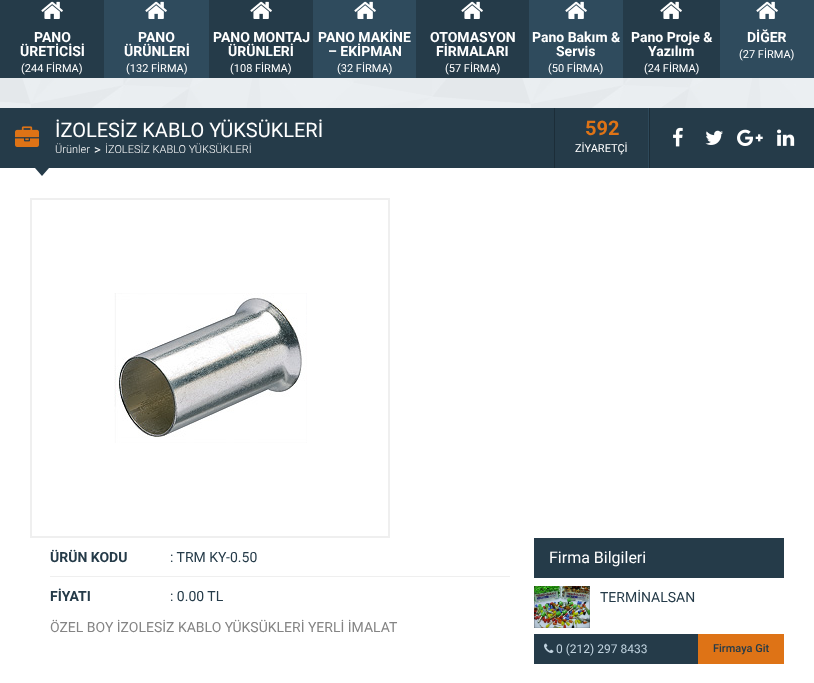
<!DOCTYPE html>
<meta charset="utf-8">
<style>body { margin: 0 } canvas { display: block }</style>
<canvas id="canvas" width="814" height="683"></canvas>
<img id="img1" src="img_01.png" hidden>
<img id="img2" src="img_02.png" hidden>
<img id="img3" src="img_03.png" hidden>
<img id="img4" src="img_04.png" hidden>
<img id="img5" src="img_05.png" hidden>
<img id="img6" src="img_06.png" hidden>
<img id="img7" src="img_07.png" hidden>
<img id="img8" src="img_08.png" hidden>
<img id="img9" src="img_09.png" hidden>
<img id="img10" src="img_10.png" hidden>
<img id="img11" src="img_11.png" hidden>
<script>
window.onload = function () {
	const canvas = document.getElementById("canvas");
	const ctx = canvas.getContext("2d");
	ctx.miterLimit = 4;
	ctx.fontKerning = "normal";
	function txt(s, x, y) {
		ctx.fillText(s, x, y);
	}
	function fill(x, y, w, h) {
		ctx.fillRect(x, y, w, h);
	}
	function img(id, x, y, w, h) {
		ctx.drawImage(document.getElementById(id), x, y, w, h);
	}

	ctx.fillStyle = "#FFFFFF";
	fill(0, 0, 814, 683);
	img("img1", 0, 78, 814, 30);
	ctx.fillStyle = "#253B49";
	fill(0, 0, 104, 78);
	img("img2", 41, 1, 22, 18);
	ctx.fillStyle = "#2F4B5D";
	fill(104, 0, 105, 78);
	img("img3", 145, 1, 22, 18);
	ctx.fillStyle = "#253B49";
	fill(209, 0, 104, 78);
	img("img2", 250, 1, 22, 18);
	ctx.fillStyle = "#2F4B5D";
	fill(313, 0, 103, 78);
	img("img3", 354, 1, 22, 18);
	ctx.fillStyle = "#253B49";
	fill(416, 0, 113, 78);
	img("img2", 461, 1, 22, 18);
	ctx.fillStyle = "#2F4B5D";
	fill(529, 0, 94, 78);
	img("img3", 565, 1, 22, 18);
	ctx.fillStyle = "#253B49";
	fill(623, 0, 97, 78);
	img("img2", 660, 1, 22, 18);
	ctx.fillStyle = "#2F4B5D";
	fill(720, 0, 94, 78);
	img("img3", 756, 1, 22, 18);
	ctx.fillStyle = "#253B49";
	fill(0, 108, 814, 60);
	img("img4", 15, 126, 24, 21);
	ctx.fillStyle = "#2E495A";
	fill(648, 108, 1, 60);
	ctx.fillStyle = "#1C2D38";
	fill(554, 108, 1, 60);
	fill(649, 108, 1, 60);
	img("img5", 673, 127, 10, 20);
	img("img6", 705, 130, 18, 15);
	img("img7", 737, 129, 26, 17);
	img("img8", 777, 129, 18, 17);
	ctx.fillStyle = "#253B49";
	ctx.beginPath();
	ctx.moveTo(35, 168);
	ctx.lineTo(49, 168);
	ctx.lineTo(42, 176);
	ctx.closePath();
	ctx.fill();
	ctx.strokeStyle = "#EFEFEF";
	ctx.lineWidth = 2;
	ctx.strokeRect(31, 199, 358, 338);
	img("img9", 114, 293, 193, 150);
	ctx.fillStyle = "#EFEFEF";
	fill(50, 576, 460, 1);
	ctx.fillStyle = "#253B49";
	fill(534, 538, 250, 40);
	img("img10", 534, 586, 56, 42);
	fill(534, 634, 164, 30);
	img("img11", 544, 643, 10, 10);
	ctx.fillStyle = "#DE7316";
	fill(698, 634, 86, 30);
	ctx.font = "bold 14px Roboto";
	ctx.fillStyle = "#FFFFFF";
	txt("PANO", 34, 42);
	txt("ÜRETİCİSİ", 20, 56);
	ctx.font = "11px Roboto";
	txt("(244 FİRMA)", 21, 72);
	ctx.font = "bold 14px Roboto";
	txt("PANO", 138, 42);
	txt("ÜRÜNLERİ", 124, 56);
	ctx.font = "11px Roboto";
	txt("(132 FİRMA)", 126, 72);
	ctx.font = "bold 14px Roboto";
	txt("PANO MONTAJ", 213, 42);
	txt("ÜRÜNLERİ", 228, 56);
	ctx.font = "11px Roboto";
	txt("(108 FİRMA)", 230, 72);
	ctx.font = "bold 14px Roboto";
	txt("PANO MAKİNE", 318, 42);
	txt("– EKİPMAN", 328, 56);
	ctx.font = "11px Roboto";
	txt("(32 FİRMA)", 337, 72);
	ctx.font = "bold 14px Roboto";
	txt("OTOMASYON", 430, 42);
	txt("FİRMALARI", 436, 56);
	ctx.font = "11px Roboto";
	txt("(57 FİRMA)", 445, 72);
	ctx.font = "bold 14px Roboto";
	txt("Pano Bakım &", 532, 42);
	txt("Servis", 556, 56);
	ctx.font = "11px Roboto";
	txt("(50 FİRMA)", 548, 72);
	ctx.font = "bold 14px Roboto";
	txt("Pano Proje &", 631, 42);
	txt("Yazılım", 648, 56);
	ctx.font = "11px Roboto";
	txt("(24 FİRMA)", 644, 72);
	ctx.font = "bold 14px Roboto";
	txt("DİĞER", 747, 42);
	ctx.font = "11px Roboto";
	txt("(27 FİRMA)", 739, 58);
	ctx.font = "20px Roboto";
	txt("İZOLESİZ KABLO YÜKSÜKLERİ", 55, 137);
	ctx.font = "300 11px Roboto";
	txt("Ürünler", 55, 153);
	ctx.font = "13px Roboto";
	txt(">", 94, 154);
	ctx.font = "300 11px Roboto";
	txt("İZOLESİZ KABLO YÜKSÜKLERİ", 105, 153);
	ctx.font = "bold 20px Roboto";
	ctx.fillStyle = "#DE7316";
	txt("592", 585, 135);
	ctx.font = "11px Roboto";
	ctx.fillStyle = "#FFFFFF";
	txt("ZİYARETÇİ", 575, 152);
	ctx.font = "bold 14px Roboto";
	ctx.fillStyle = "#253B49";
	txt("ÜRÜN KODU", 50, 562);
	ctx.font = "14px Roboto";
	txt(": TRM KY-0.50", 170, 562);
	ctx.font = "bold 14px Roboto";
	txt("FİYATI", 50, 601);
	ctx.font = "14px Roboto";
	txt(": 0.00 TL", 170, 601);
	ctx.fillStyle = "#848484";
	txt("ÖZEL BOY İZOLESİZ KABLO YÜKSÜKLERİ YERLİ İMALAT", 50, 632);
	ctx.font = "16px Roboto";
	ctx.fillStyle = "#FFFFFF";
	txt("Firma Bilgileri", 549, 563);
	ctx.font = "14px Roboto";
	ctx.fillStyle = "#253B49";
	txt("TERMİNALSAN", 600, 602);
	ctx.font = "12px Roboto";
	ctx.fillStyle = "#C1D3DF";
	txt("0 (212) 297 8433", 556, 653);
	ctx.font = "500 11px Roboto";
	ctx.fillStyle = "#253B49";
	txt("Firmaya Git", 713, 652);
};
</script>
